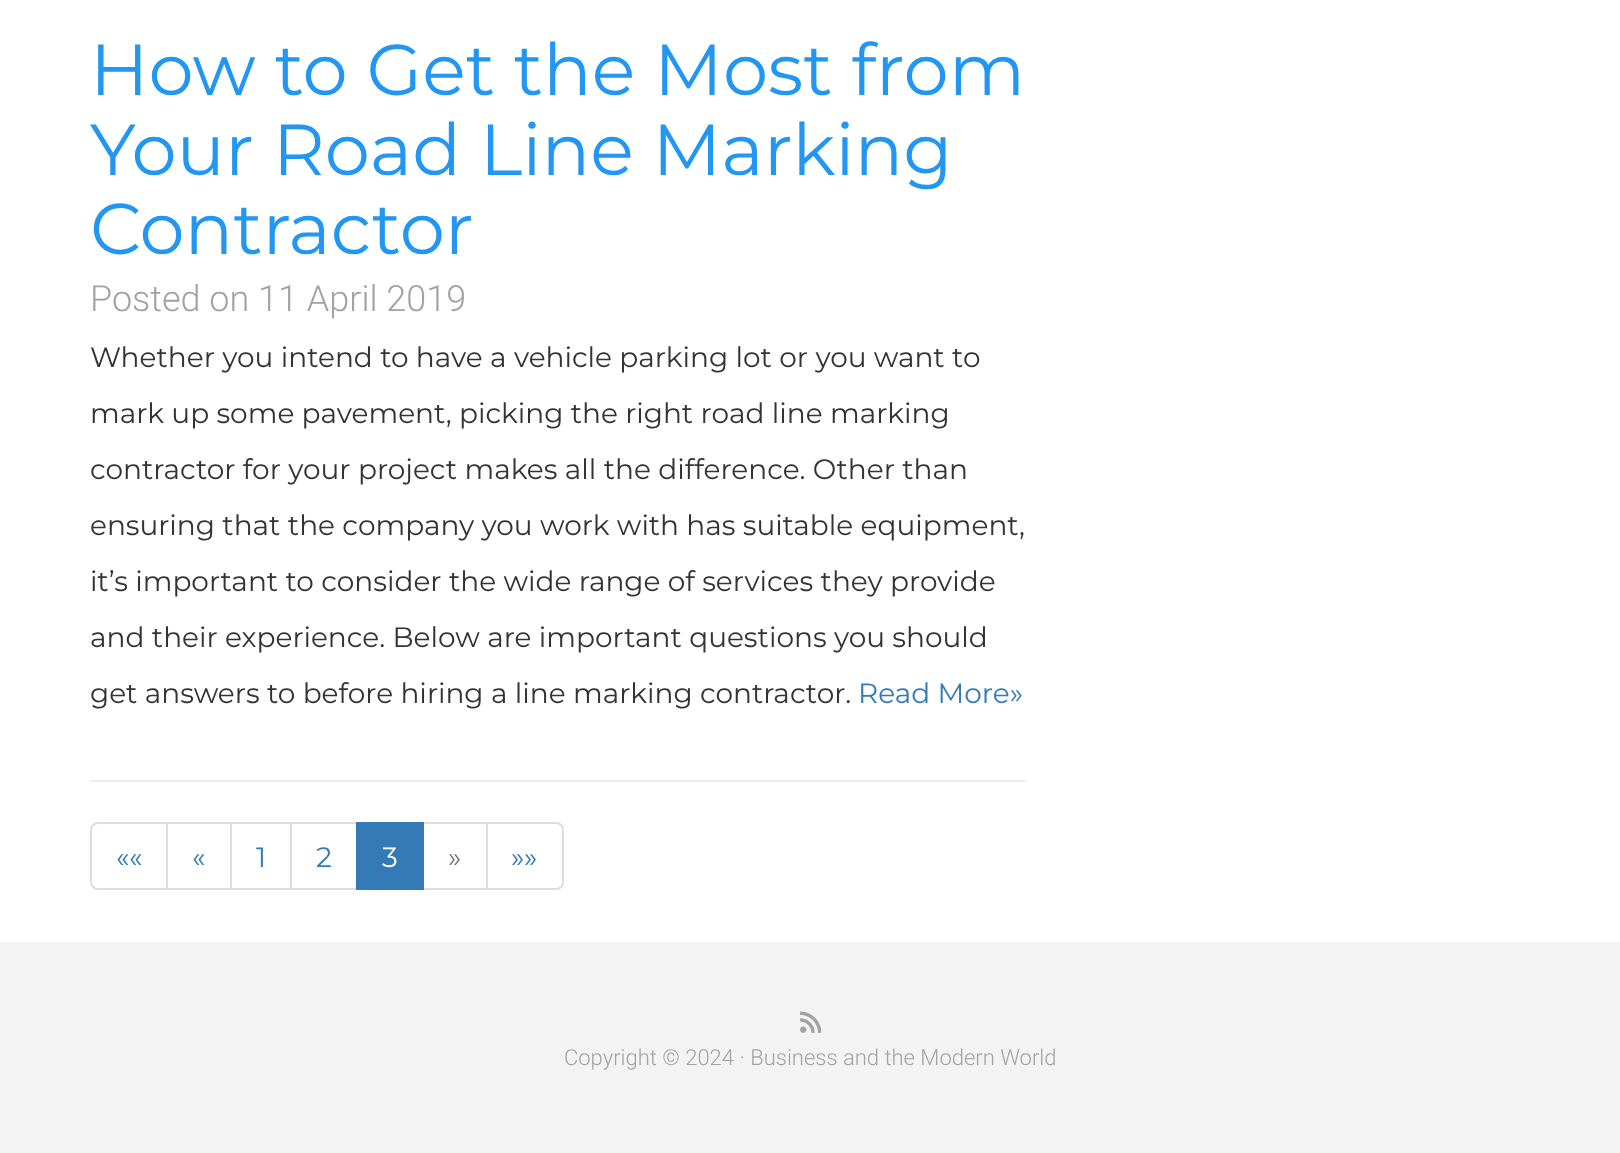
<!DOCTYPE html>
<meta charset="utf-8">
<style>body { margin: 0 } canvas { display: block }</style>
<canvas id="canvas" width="1620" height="1153"></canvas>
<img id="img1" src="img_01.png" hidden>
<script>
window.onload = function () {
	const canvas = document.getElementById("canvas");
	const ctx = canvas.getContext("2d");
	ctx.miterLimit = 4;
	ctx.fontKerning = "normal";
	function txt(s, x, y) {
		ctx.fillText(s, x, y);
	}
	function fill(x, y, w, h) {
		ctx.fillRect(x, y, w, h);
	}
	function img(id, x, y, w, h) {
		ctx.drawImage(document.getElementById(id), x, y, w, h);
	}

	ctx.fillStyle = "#FFFFFF";
	fill(0, 0, 1620, 1153);
	ctx.fillStyle = "#ECECEC";
	fill(90, 780, 936, 2);
	ctx.beginPath();
	ctx.roundRect(91, 823, 76, 66, [7, 0, 0, 7]);
	ctx.strokeStyle = "#DDDDDD";
	ctx.lineWidth = 2;
	ctx.stroke();
	ctx.strokeRect(167, 823, 64, 66);
	ctx.strokeRect(231, 823, 60, 66);
	ctx.strokeRect(291, 823, 66, 66);
	ctx.strokeRect(423, 823, 64, 66);
	ctx.fillStyle = "#337AB7";
	fill(356, 822, 68, 68);
	ctx.fillStyle = "#FFFFFF";
	ctx.beginPath();
	ctx.roundRect(487, 823, 76, 66, [0, 7, 7, 0]);
	ctx.fill();
	ctx.stroke();
	ctx.fillStyle = "#F3F3F3";
	fill(0, 942, 1620, 211);
	img("img1", 800, 1011, 22, 22);
	ctx.font = "100 72px Montserrat";
	ctx.fillStyle = "#2196F3";
	txt("How to Get the Most from", 90, 95);
	txt("Your Road Line Marking", 90, 175);
	txt("Contractor", 90, 254);
	ctx.font = "300 36px Roboto";
	ctx.fillStyle = "#A2A2A2";
	txt("Posted on 11 April 2019", 90, 311);
	ctx.font = "100 28px Montserrat";
	ctx.fillStyle = "#333333";
	txt("Whether you intend to have a vehicle parking lot or you want to", 90, 367);
	txt("mark up some pavement, picking the right road line marking", 90, 423);
	txt("contractor for your project makes all the difference. Other than", 90, 479);
	txt("ensuring that the company you work with has suitable equipment,", 90, 535);
	txt("it’s important to consider the wide range of services they provide", 90, 591);
	txt("and their experience. Below are important questions you should", 90, 647);
	txt("get answers to before hiring a line marking contractor.", 90, 703);
	ctx.fillStyle = "#337AB7";
	txt("Read More»", 858, 703);
	txt("««", 116, 867);
	txt("«", 192, 867);
	txt("1", 256, 867);
	txt("2", 316, 867);
	ctx.fillStyle = "#FFFFFF";
	txt("3", 382, 867);
	ctx.fillStyle = "#777777";
	txt("»", 448, 867);
	ctx.fillStyle = "#337AB7";
	txt("»»", 511, 867);
	ctx.font = "300 22px Roboto";
	ctx.fillStyle = "#A2A2A2";
	txt("Copyright © 2024 · Business and the Modern World", 564, 1065);
};
</script>
